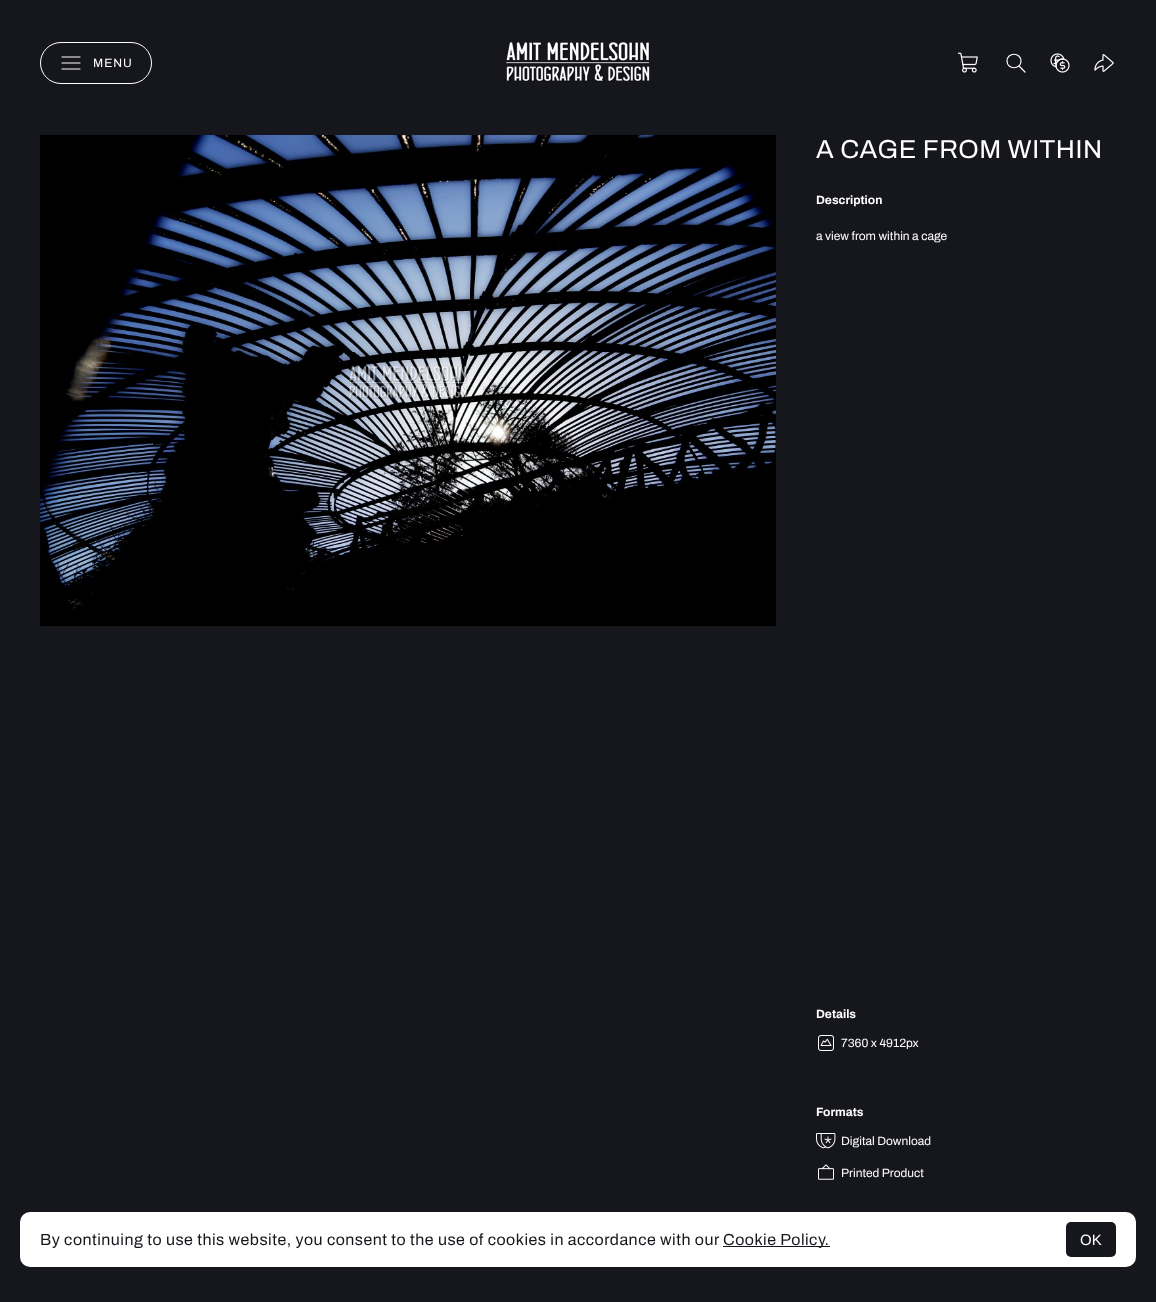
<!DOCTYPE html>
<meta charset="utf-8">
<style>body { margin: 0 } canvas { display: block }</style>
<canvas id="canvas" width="1156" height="1302"></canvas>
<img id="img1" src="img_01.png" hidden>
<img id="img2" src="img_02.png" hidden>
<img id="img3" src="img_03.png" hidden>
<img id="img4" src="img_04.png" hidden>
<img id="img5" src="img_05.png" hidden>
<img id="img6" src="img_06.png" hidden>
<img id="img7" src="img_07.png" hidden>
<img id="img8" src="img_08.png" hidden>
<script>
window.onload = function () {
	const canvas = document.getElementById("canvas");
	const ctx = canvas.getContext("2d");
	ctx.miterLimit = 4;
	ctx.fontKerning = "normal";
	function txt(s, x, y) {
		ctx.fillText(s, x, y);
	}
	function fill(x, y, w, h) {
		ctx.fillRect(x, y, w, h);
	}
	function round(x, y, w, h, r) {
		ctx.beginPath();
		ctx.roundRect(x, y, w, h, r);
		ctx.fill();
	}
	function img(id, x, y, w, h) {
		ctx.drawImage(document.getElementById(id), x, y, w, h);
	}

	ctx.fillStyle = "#16161D";
	fill(0, 0, 1156, 1302);
	ctx.beginPath();
	ctx.roundRect(40.5, 42.5, 111, 41, 20.5);
	ctx.strokeStyle = "#FFFFFF";
	ctx.stroke();
	ctx.beginPath();
	ctx.moveTo(62, 63);
	ctx.lineTo(80, 63);
	ctx.moveTo(62, 57);
	ctx.lineTo(80, 57);
	ctx.moveTo(62, 69);
	ctx.lineTo(80, 69);
	ctx.lineWidth = 1.2;
	ctx.lineCap = "round";
	ctx.lineJoin = "round";
	ctx.stroke();
	img("img1", 506, 42, 144, 40);
	img("img2", 957, 52, 21, 21);
	ctx.beginPath();
	ctx.moveTo(1025, 72);
	ctx.lineTo(1019, 66);
	ctx.moveTo(1021, 61);
	ctx.bezierCurveTo(1021, 70, 1007, 70, 1007, 61);
	ctx.bezierCurveTo(1007, 52, 1021, 52, 1021, 61);
	ctx.closePath();
	ctx.stroke();
	img("img3", 1050, 53, 20, 20);
	img("img4", 1094, 54, 20, 18);
	img("img5", 40, 135, 736, 491);
	img("img6", 818, 1035, 16, 16);
	img("img7", 816, 1133, 20, 16);
	img("img8", 818, 1164, 16, 16);
	ctx.fillStyle = "#FFFFFF";
	round(20, 1212, 1116, 55, 10);
	ctx.fillStyle = "#16161D";
	fill(723, 1246, 107, 1);
	round(1066, 1222, 50, 35, 5);
	ctx.letterSpacing = "1px";
	ctx.font = "12px Archivo";
	ctx.fillStyle = "#FFFFFF";
	txt("MENU", 93, 67);
	ctx.letterSpacing = "0.5px";
	ctx.font = "26px Archivo";
	txt("A CAGE FROM WITHIN", 816, 158);
	ctx.letterSpacing = "0px";
	ctx.font = "bold 12px Archivo";
	txt("Description", 816, 204);
	ctx.font = "12px Archivo";
	txt("a view from within a cage", 816, 240);
	ctx.font = "bold 12px Archivo";
	txt("Details", 816, 1018);
	ctx.font = "12px Archivo";
	txt("7360 x 4912px", 841, 1047);
	ctx.font = "bold 12px Archivo";
	txt("Formats", 816, 1116);
	ctx.font = "12px Archivo";
	txt("Digital Download", 841, 1145);
	txt("Printed Product", 841, 1177);
	ctx.letterSpacing = "0.5px";
	ctx.font = "16px Archivo";
	ctx.fillStyle = "#16161D";
	txt("By continuing to use this website, you consent to the use of cookies in accordance with our", 40, 1245);
	txt("Cookie Policy.", 723, 1245);
	ctx.letterSpacing = "0px";
	ctx.font = "15px Liberation Sans";
	ctx.fillStyle = "#FFFFFF";
	txt("OK", 1080, 1245);
};
</script>
